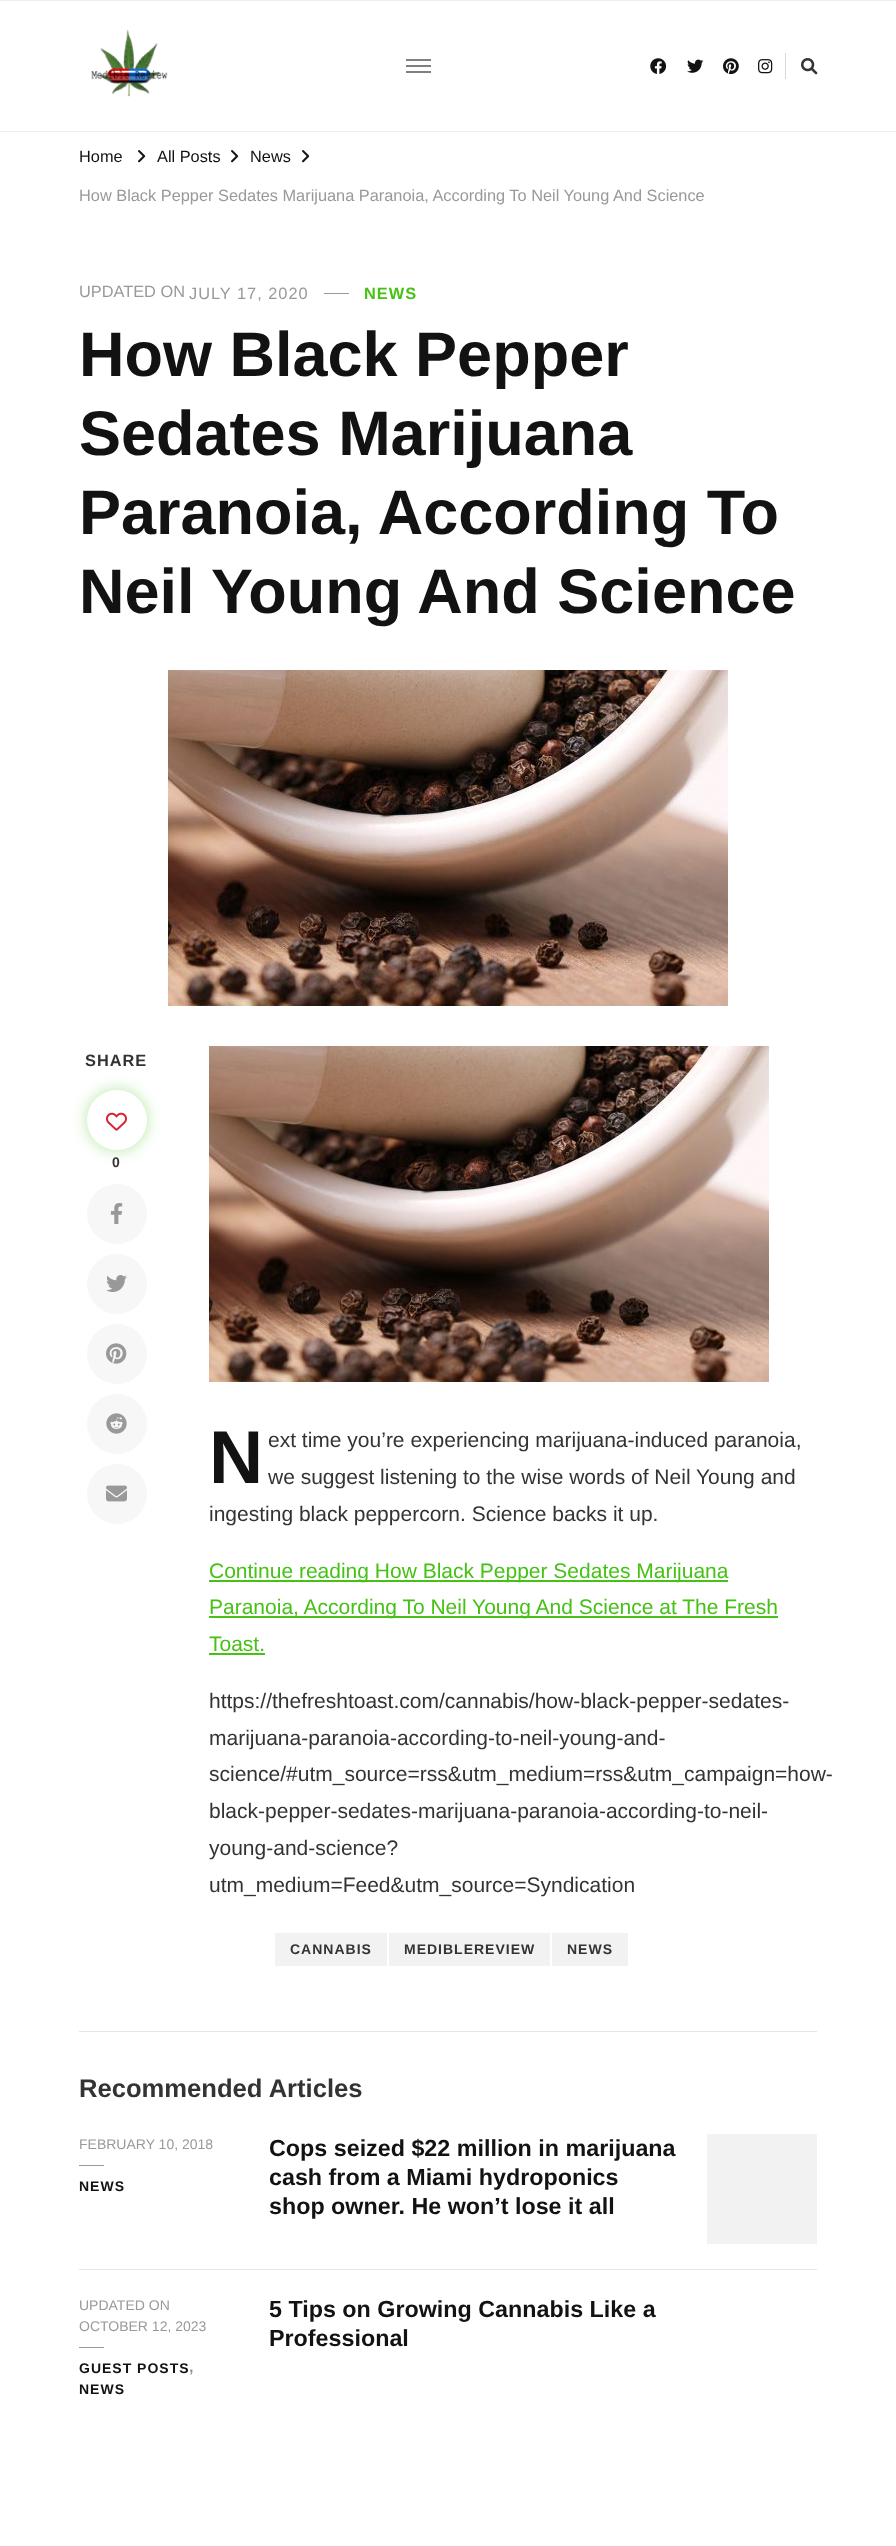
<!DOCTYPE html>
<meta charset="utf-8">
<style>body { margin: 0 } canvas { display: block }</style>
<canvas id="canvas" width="896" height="2546"></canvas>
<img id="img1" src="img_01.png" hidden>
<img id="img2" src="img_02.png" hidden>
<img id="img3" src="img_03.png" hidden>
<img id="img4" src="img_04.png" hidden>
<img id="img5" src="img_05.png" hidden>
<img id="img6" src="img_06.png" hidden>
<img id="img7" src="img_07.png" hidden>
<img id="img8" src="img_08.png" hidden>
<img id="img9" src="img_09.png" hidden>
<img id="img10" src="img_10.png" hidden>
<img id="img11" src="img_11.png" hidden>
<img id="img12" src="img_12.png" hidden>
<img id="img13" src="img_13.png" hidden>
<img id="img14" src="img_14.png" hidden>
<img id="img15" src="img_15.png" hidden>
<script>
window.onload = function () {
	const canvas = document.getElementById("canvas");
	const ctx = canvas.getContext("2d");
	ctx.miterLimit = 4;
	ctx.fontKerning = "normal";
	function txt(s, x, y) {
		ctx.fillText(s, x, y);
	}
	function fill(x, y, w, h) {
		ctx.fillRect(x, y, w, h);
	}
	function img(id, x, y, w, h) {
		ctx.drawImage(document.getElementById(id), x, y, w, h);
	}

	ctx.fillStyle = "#FFFFFF";
	fill(0, 0, 896, 2546);
	ctx.fillStyle = "#EDEDED";
	fill(0, 0, 896, 1);
	fill(0, 131, 896, 1);
	img("img1", 91, 29, 77, 68);
	ctx.fillStyle = "#808080";
	fill(406, 59, 25, 2);
	fill(406, 65, 25, 2);
	fill(406, 71, 25, 2);
	img("img2", 650, 58, 17, 16);
	img("img3", 687, 59, 17, 14);
	img("img4", 723, 58, 16, 17);
	img("img5", 758, 59, 15, 15);
	ctx.fillStyle = "#D9D9D9";
	fill(785, 53, 1, 26);
	img("img6", 801, 58, 17, 17);
	img("img7", 138, 150, 8, 13);
	img("img7", 231, 150, 8, 13);
	img("img7", 302, 150, 8, 13);
	ctx.fillStyle = "#999999";
	fill(324, 293, 25, 1);
	img("img8", 168, 670, 560, 336);
	ctx.fillStyle = "rgba(70, 193, 21, 0.4)";
	ctx.filter = "blur(7.5px)";
	ctx.beginPath();
	ctx.roundRect(87, 1090, 60, 60, 30);
	ctx.fill();
	ctx.filter = "none";
	ctx.fillStyle = "#FFFFFF";
	ctx.beginPath();
	ctx.arc(117, 1120, 30, 0, Math.PI * 2);
	ctx.fill();
	img("img9", 106, 1112, 21, 19);
	ctx.fillStyle = "#F7F7F7";
	ctx.beginPath();
	ctx.arc(117, 1214, 30, 0, Math.PI * 2);
	ctx.fill();
	img("img10", 110, 1203, 13, 21);
	ctx.beginPath();
	ctx.arc(117, 1284, 30, 0, Math.PI * 2);
	ctx.fill();
	img("img11", 106, 1275, 21, 17);
	ctx.beginPath();
	ctx.arc(117, 1354, 30, 0, Math.PI * 2);
	ctx.fill();
	img("img12", 106, 1343, 21, 21);
	ctx.beginPath();
	ctx.arc(117, 1424, 30, 0, Math.PI * 2);
	ctx.fill();
	img("img13", 106, 1413, 21, 21);
	ctx.beginPath();
	ctx.arc(117, 1494, 30, 0, Math.PI * 2);
	ctx.fill();
	img("img14", 106, 1485, 21, 17);
	img("img15", 209, 1046, 560, 336);
	ctx.fillStyle = "#46C115";
	fill(209, 1580, 519, 2);
	fill(209, 1616, 569, 2);
	fill(209, 1653, 56, 2);
	ctx.fillStyle = "#F2F2F2";
	fill(275, 1933, 112, 33);
	fill(389, 1933, 161, 33);
	fill(552, 1933, 76, 33);
	ctx.fillStyle = "#E6E6E6";
	fill(79, 2031, 738, 1);
	fill(79, 2269, 738, 1);
	ctx.fillStyle = "#999999";
	fill(79, 2165, 25, 1);
	ctx.fillStyle = "#F2F2F2";
	fill(707, 2134, 110, 110);
	ctx.fillStyle = "#999999";
	fill(79, 2347, 25, 1);
	ctx.font = "16.35px Liberation Sans";
	ctx.fillStyle = "#121212";
	txt("Home", 79, 162);
	txt("All Posts", 157, 162);
	txt("News", 250, 162);
	ctx.fillStyle = "#999999";
	txt("How Black Pepper Sedates Marijuana Paranoia, According To Neil Young And Science", 79, 201);
	txt("UPDATED ON", 79, 297);
	ctx.letterSpacing = "1px";
	txt("JULY 17, 2020", 189, 299);
	ctx.font = "bold 16.35px Liberation Sans";
	ctx.fillStyle = "#46C115";
	txt("NEWS", 364, 299);
	ctx.letterSpacing = "0px";
	ctx.font = "bold 63px Liberation Sans";
	ctx.fillStyle = "#121212";
	txt("How Black Pepper", 79, 376);
	txt("Sedates Marijuana", 79, 455);
	txt("Paranoia, According To", 79, 534);
	txt("Neil Young And Science", 79, 613);
	ctx.letterSpacing = "1px";
	ctx.font = "bold 16.35px Liberation Sans";
	ctx.fillStyle = "#333333";
	txt("SHARE", 85, 1066);
	ctx.font = "bold 14px Liberation Sans";
	txt("0", 112, 1167);
	ctx.letterSpacing = "0px";
	ctx.font = "bold 75px Liberation Sans";
	ctx.fillStyle = "#121212";
	txt("N", 209, 1483);
	ctx.font = "21px Liberation Sans";
	ctx.fillStyle = "#333333";
	txt("ext time you’re experiencing marijuana-induced paranoia,", 268, 1447);
	txt("we suggest listening to the wise words of Neil Young and", 268, 1484);
	txt("ingesting black peppercorn. Science backs it up.", 209, 1521);
	ctx.fillStyle = "#46C115";
	txt("Continue reading How Black Pepper Sedates Marijuana", 209, 1578);
	txt("Paranoia, According To Neil Young And Science at The Fresh", 209, 1614);
	txt("Toast.", 209, 1651);
	ctx.fillStyle = "#333333";
	txt("https://thefreshtoast.com/cannabis/how-black-pepper-sedates-", 209, 1708);
	txt("marijuana-paranoia-according-to-neil-young-and-", 209, 1745);
	txt("science/#utm_source=rss&utm_medium=rss&utm_campaign=how-", 209, 1781);
	txt("black-pepper-sedates-marijuana-paranoia-according-to-neil-", 209, 1818);
	txt("young-and-science?", 209, 1855);
	txt("utm_medium=Feed&utm_source=Syndication", 209, 1892);
	ctx.letterSpacing = "1px";
	ctx.font = "bold 14px Liberation Sans";
	txt("CANNABIS", 290, 1954);
	txt("MEDIBLEREVIEW", 404, 1954);
	txt("NEWS", 567, 1954);
	ctx.letterSpacing = "0px";
	ctx.font = "bold 25.6px Liberation Sans";
	txt("Recommended Articles", 79, 2097);
	ctx.font = "14px Liberation Sans";
	ctx.fillStyle = "#999999";
	txt("FEBRUARY 10, 2018", 79, 2149);
	ctx.letterSpacing = "1px";
	ctx.font = "bold 14px Liberation Sans";
	ctx.fillStyle = "#121212";
	txt("NEWS", 79, 2191);
	ctx.letterSpacing = "0px";
	ctx.font = "bold 23.3px Liberation Sans";
	txt("Cops seized $22 million in marijuana", 269, 2156);
	txt("cash from a Miami hydroponics", 269, 2185);
	txt("shop owner. He won’t lose it all", 269, 2214);
	ctx.font = "14px Liberation Sans";
	ctx.fillStyle = "#999999";
	txt("UPDATED ON", 79, 2310);
	txt("OCTOBER 12, 2023", 79, 2331);
	ctx.letterSpacing = "1px";
	ctx.font = "bold 14px Liberation Sans";
	ctx.fillStyle = "#121212";
	txt("GUEST POSTS", 79, 2373);
	ctx.font = "bold 16px Liberation Sans";
	ctx.fillStyle = "#999999";
	txt(",", 189, 2372);
	ctx.font = "bold 14px Liberation Sans";
	ctx.fillStyle = "#121212";
	txt("NEWS", 79, 2394);
	ctx.letterSpacing = "0px";
	ctx.font = "bold 23.3px Liberation Sans";
	txt("5 Tips on Growing Cannabis Like a", 269, 2317);
	txt("Professional", 269, 2346);
};
</script>
